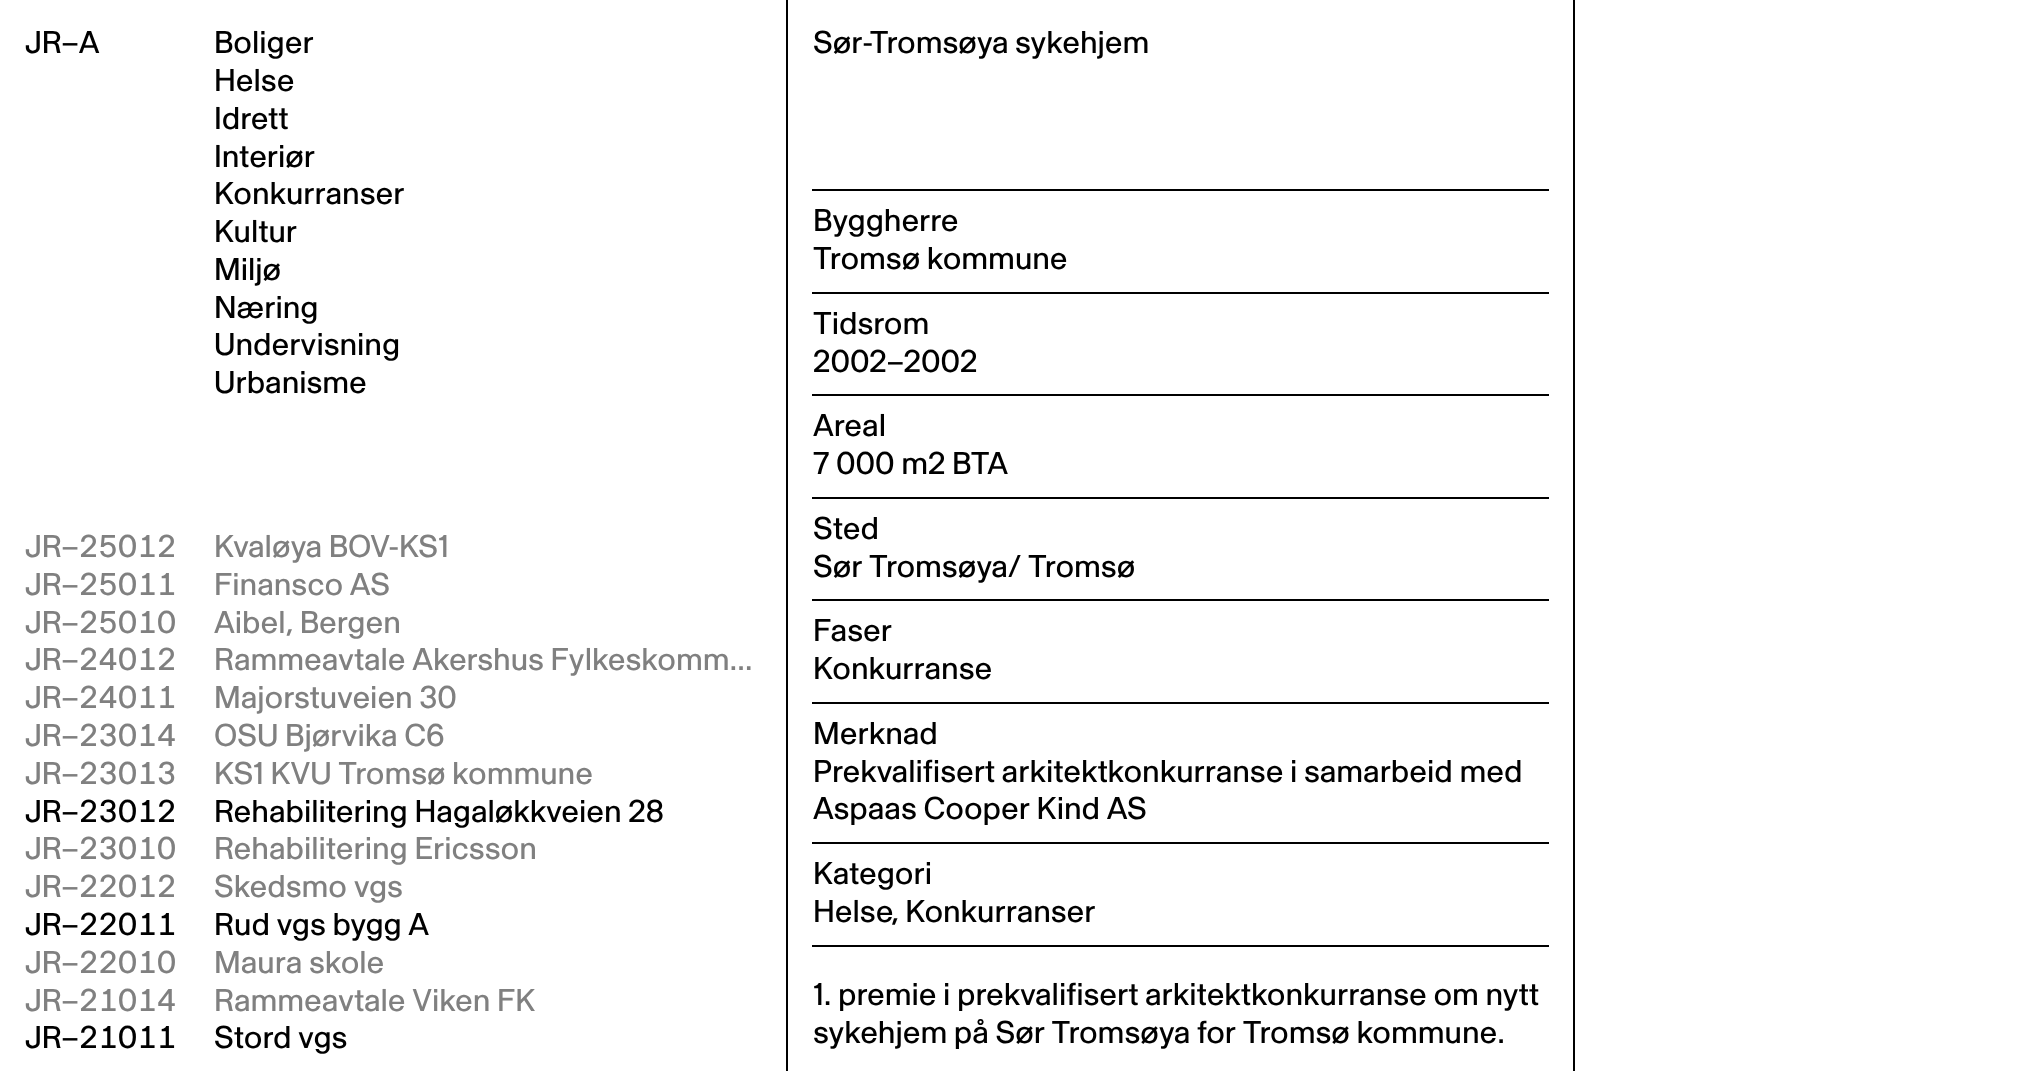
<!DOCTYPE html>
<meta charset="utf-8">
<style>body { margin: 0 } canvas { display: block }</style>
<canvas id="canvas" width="2030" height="1071"></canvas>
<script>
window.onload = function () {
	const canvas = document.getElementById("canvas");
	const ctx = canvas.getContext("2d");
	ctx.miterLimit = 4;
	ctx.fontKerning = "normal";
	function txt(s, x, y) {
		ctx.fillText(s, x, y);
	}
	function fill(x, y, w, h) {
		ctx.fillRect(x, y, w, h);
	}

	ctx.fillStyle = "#FFFFFF";
	fill(0, 0, 2030, 1071);
	ctx.fillStyle = "#000000";
	fill(786, 0, 2, 1071);
	fill(1573, 0, 2, 1071);
	fill(812, 189, 737, 2);
	fill(812, 292, 737, 2);
	fill(812, 394, 737, 2);
	fill(812, 497, 737, 2);
	fill(812, 599, 737, 2);
	fill(812, 702, 737, 2);
	fill(812, 842, 737, 2);
	fill(812, 945, 737, 2);
	ctx.font = "31.5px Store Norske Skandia";
	txt("JR–A", 25, 53);
	txt("Boliger", 214, 53);
	txt("Helse", 214, 91);
	txt("Idrett", 214, 129);
	txt("Interiør", 214, 167);
	txt("Konkurranser", 214, 204);
	txt("Kultur", 214, 242);
	txt("Miljø", 214, 280);
	txt("Næring", 214, 318);
	txt("Undervisning", 214, 355);
	txt("Urbanisme", 214, 393);
	ctx.font = "31.5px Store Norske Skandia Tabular";
	ctx.fillStyle = "#808080";
	txt("JR–25012", 25, 557);
	ctx.font = "31.5px Store Norske Skandia";
	txt("Kvaløya BOV-KS1", 214, 557);
	ctx.font = "31.5px Store Norske Skandia Tabular";
	txt("JR–25011", 25, 595);
	ctx.font = "31.5px Store Norske Skandia";
	txt("Finansco AS", 214, 595);
	ctx.font = "31.5px Store Norske Skandia Tabular";
	txt("JR–25010", 25, 633);
	ctx.font = "31.5px Store Norske Skandia";
	txt("Aibel, Bergen", 214, 633);
	ctx.font = "31.5px Store Norske Skandia Tabular";
	txt("JR–24012", 25, 670);
	ctx.font = "31.5px Store Norske Skandia";
	txt("Rammeavtale Akershus Fylkeskomm…", 214, 670);
	ctx.font = "31.5px Store Norske Skandia Tabular";
	txt("JR–24011", 25, 708);
	ctx.font = "31.5px Store Norske Skandia";
	txt("Majorstuveien 30", 214, 708);
	ctx.font = "31.5px Store Norske Skandia Tabular";
	txt("JR–23014", 25, 746);
	ctx.font = "31.5px Store Norske Skandia";
	txt("OSU Bjørvika C6", 214, 746);
	ctx.font = "31.5px Store Norske Skandia Tabular";
	txt("JR–23013", 25, 784);
	ctx.font = "31.5px Store Norske Skandia";
	txt("KS1 KVU Tromsø kommune", 214, 784);
	ctx.font = "31.5px Store Norske Skandia Tabular";
	ctx.fillStyle = "#000000";
	txt("JR–23012", 25, 822);
	ctx.font = "31.5px Store Norske Skandia";
	txt("Rehabilitering Hagaløkkveien 28", 214, 822);
	ctx.font = "31.5px Store Norske Skandia Tabular";
	ctx.fillStyle = "#808080";
	txt("JR–23010", 25, 859);
	ctx.font = "31.5px Store Norske Skandia";
	txt("Rehabilitering Ericsson", 214, 859);
	ctx.font = "31.5px Store Norske Skandia Tabular";
	txt("JR–22012", 25, 897);
	ctx.font = "31.5px Store Norske Skandia";
	txt("Skedsmo vgs", 214, 897);
	ctx.font = "31.5px Store Norske Skandia Tabular";
	ctx.fillStyle = "#000000";
	txt("JR–22011", 25, 935);
	ctx.font = "31.5px Store Norske Skandia";
	txt("Rud vgs bygg A", 214, 935);
	ctx.font = "31.5px Store Norske Skandia Tabular";
	ctx.fillStyle = "#808080";
	txt("JR–22010", 25, 973);
	ctx.font = "31.5px Store Norske Skandia";
	txt("Maura skole", 214, 973);
	ctx.font = "31.5px Store Norske Skandia Tabular";
	txt("JR–21014", 25, 1011);
	ctx.font = "31.5px Store Norske Skandia";
	txt("Rammeavtale Viken FK", 214, 1011);
	ctx.font = "31.5px Store Norske Skandia Tabular";
	ctx.fillStyle = "#000000";
	txt("JR–21011", 25, 1048);
	ctx.font = "31.5px Store Norske Skandia";
	txt("Stord vgs", 214, 1048);
	txt("Sør-Tromsøya sykehjem", 813, 53);
	txt("Byggherre", 813, 231);
	txt("Tromsø kommune", 813, 269);
	txt("Tidsrom", 813, 334);
	txt("2002–2002", 813, 372);
	txt("Areal", 813, 436);
	txt("7 000 m2 BTA", 813, 474);
	txt("Sted", 813, 539);
	txt("Sør Tromsøya/ Tromsø", 813, 577);
	txt("Faser", 813, 641);
	txt("Konkurranse", 813, 679);
	txt("Merknad", 813, 744);
	txt("Prekvalifisert arkitektkonkurranse i samarbeid med", 813, 782);
	txt("Aspaas Cooper Kind AS", 813, 819);
	txt("Kategori", 813, 884);
	txt("Helse", 813, 922);
	txt(", Konkurranser", 891, 922);
	txt("1. premie i prekvalifisert arkitektkonkurranse om nytt", 813, 1005);
	txt("sykehjem på Sør Tromsøya for Tromsø kommune.", 813, 1043);
};
</script>
